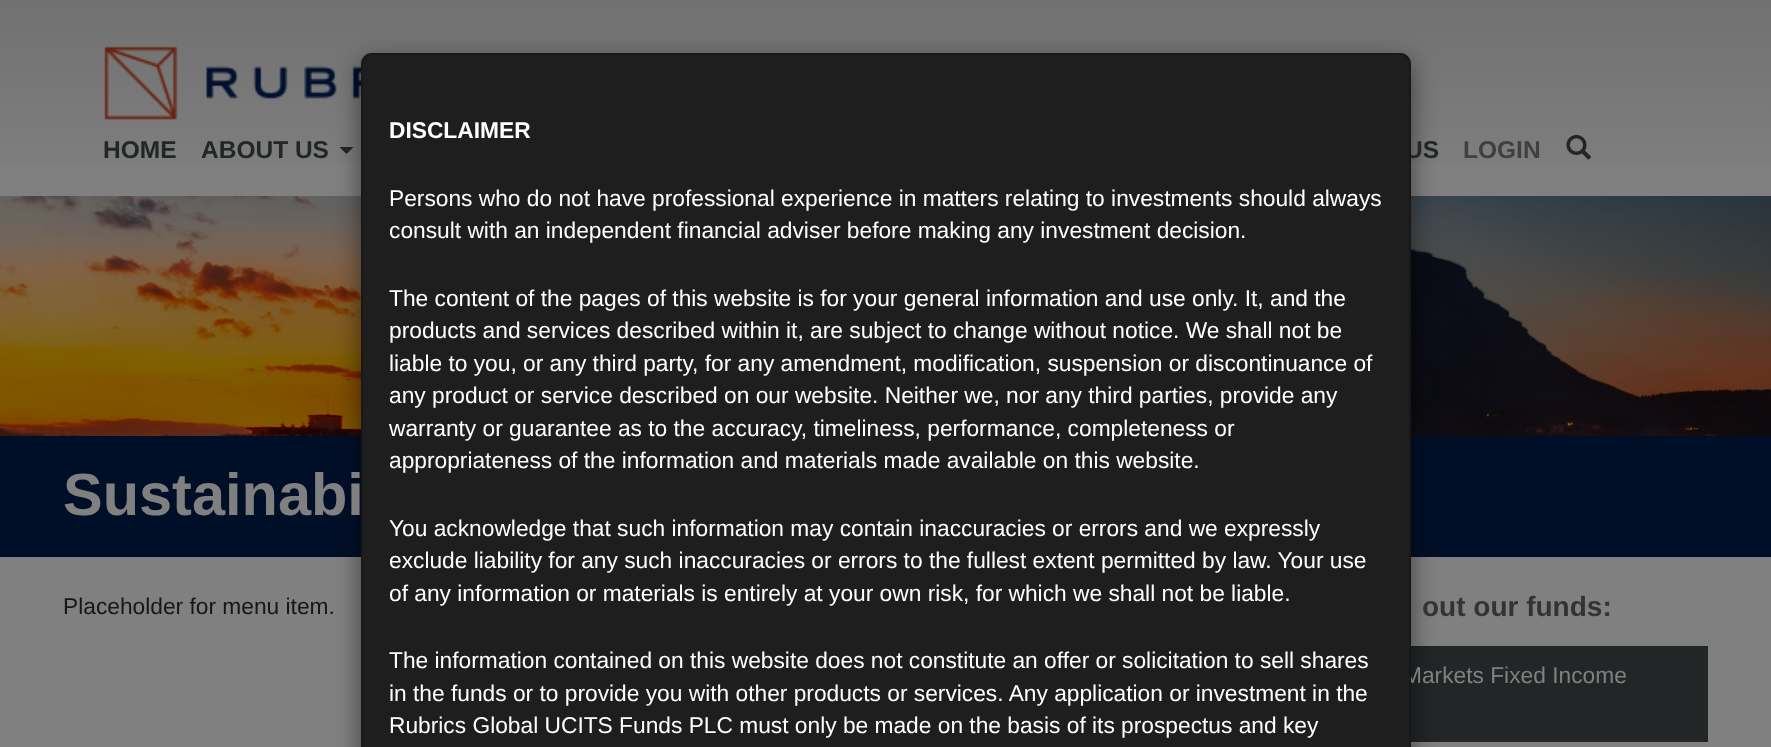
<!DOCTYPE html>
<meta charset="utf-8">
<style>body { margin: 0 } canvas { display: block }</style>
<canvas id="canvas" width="1771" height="747"></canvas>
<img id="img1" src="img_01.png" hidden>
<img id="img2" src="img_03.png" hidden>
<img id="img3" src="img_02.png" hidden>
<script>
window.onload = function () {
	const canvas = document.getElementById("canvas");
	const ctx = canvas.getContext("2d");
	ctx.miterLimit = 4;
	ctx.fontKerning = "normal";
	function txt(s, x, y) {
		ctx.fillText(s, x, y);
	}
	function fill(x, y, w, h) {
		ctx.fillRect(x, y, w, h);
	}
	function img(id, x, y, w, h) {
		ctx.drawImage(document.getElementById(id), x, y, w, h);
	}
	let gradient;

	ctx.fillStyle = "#808080";
	fill(0, 0, 1771, 747);
	gradient = ctx.createLinearGradient(886, 0, 886, 196);
	gradient.addColorStop(0, "#717171");
	gradient.addColorStop(1, "#808080");
	ctx.fillStyle = gradient;
	fill(0, 0, 1771, 163);
	img("img1", 104, 46, 257, 74);
	ctx.fillStyle = "#222627";
	ctx.beginPath();
	ctx.moveTo(339.5, 147);
	ctx.lineTo(353.5, 147);
	ctx.lineTo(346.5, 154);
	ctx.closePath();
	ctx.fill();
	img("img2", 0, 196, 1771, 240);
	ctx.fillStyle = "#000F28";
	fill(0, 436, 1771, 121);
	ctx.fillStyle = "#222627";
	fill(1411, 646, 297, 96);
	ctx.fillStyle = "rgba(0, 0, 0, 0.5)";
	ctx.filter = "blur(13px)";
	ctx.beginPath();
	ctx.roundRect(361, 61, 1050, 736, 11);
	ctx.fill();
	ctx.filter = "none";
	img("img3", 1566, 134, 25, 26);
	ctx.font = "bold 24.5px Liberation Sans";
	ctx.fillStyle = "#222627";
	txt("HOME", 103, 158);
	txt("ABOUT US", 201, 158);
	txt("US", 1405, 158);
	ctx.fillStyle = "#404040";
	txt("LOGIN", 1463, 158);
	ctx.font = "bold 59.5px Liberation Sans";
	ctx.fillStyle = "#808080";
	txt("Sustainabi", 63, 515);
	ctx.font = "22.75px Liberation Sans";
	ctx.fillStyle = "#171717";
	txt("Placeholder for menu item.", 63, 614);
	ctx.font = "bold 28px Liberation Sans";
	ctx.fillStyle = "#333333";
	txt("out our funds:", 1422, 616);
	ctx.font = "22.75px Liberation Sans";
	ctx.fillStyle = "#808080";
	txt("Markets Fixed Income", 1403, 683);
	ctx.fillStyle = "#1E1E1E";
	ctx.beginPath();
	ctx.roundRect(361, 53, 1050, 694, [11, 11, 0, 0]);
	ctx.fill();
	ctx.beginPath();
	ctx.roundRect(362, 54, 1048, 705, 10);
	ctx.strokeStyle = "rgba(0, 0, 0, 0.2)";
	ctx.lineWidth = 2;
	ctx.stroke();
	ctx.fillStyle = "#FFFFFF";
	txt("Rubrics Global UCITS Funds PLC must only be made on the basis of its prospectus and key", 389, 733);
	txt("in the funds or to provide you with other products or services. Any application or investment in the", 389, 701);
	txt("The information contained on this website does not constitute an offer or solicitation to sell shares", 389, 668);
	txt("of any information or materials is entirely at your own risk, for which we shall not be liable.", 389, 601);
	txt("exclude liability for any such inaccuracies or errors to the fullest extent permitted by law. Your use", 389, 568);
	txt("You acknowledge that such information may contain inaccuracies or errors and we expressly", 389, 536);
	txt("appropriateness of the information and materials made available on this website.", 389, 468);
	txt("warranty or guarantee as to the accuracy, timeliness, performance, completeness or", 389, 436);
	txt("any product or service described on our website. Neither we, nor any third parties, provide any", 389, 403);
	txt("liable to you, or any third party, for any amendment, modification, suspension or discontinuance of", 389, 371);
	txt("products and services described within it, are subject to change without notice. We shall not be", 389, 338);
	txt("The content of the pages of this website is for your general information and use only. It, and the", 389, 306);
	txt("consult with an independent financial adviser before making any investment decision.", 389, 238);
	txt("Persons who do not have professional experience in matters relating to investments should always", 389, 206);
	ctx.font = "bold 22.75px Liberation Sans";
	txt("DISCLAIMER", 389, 138);
};
</script>
